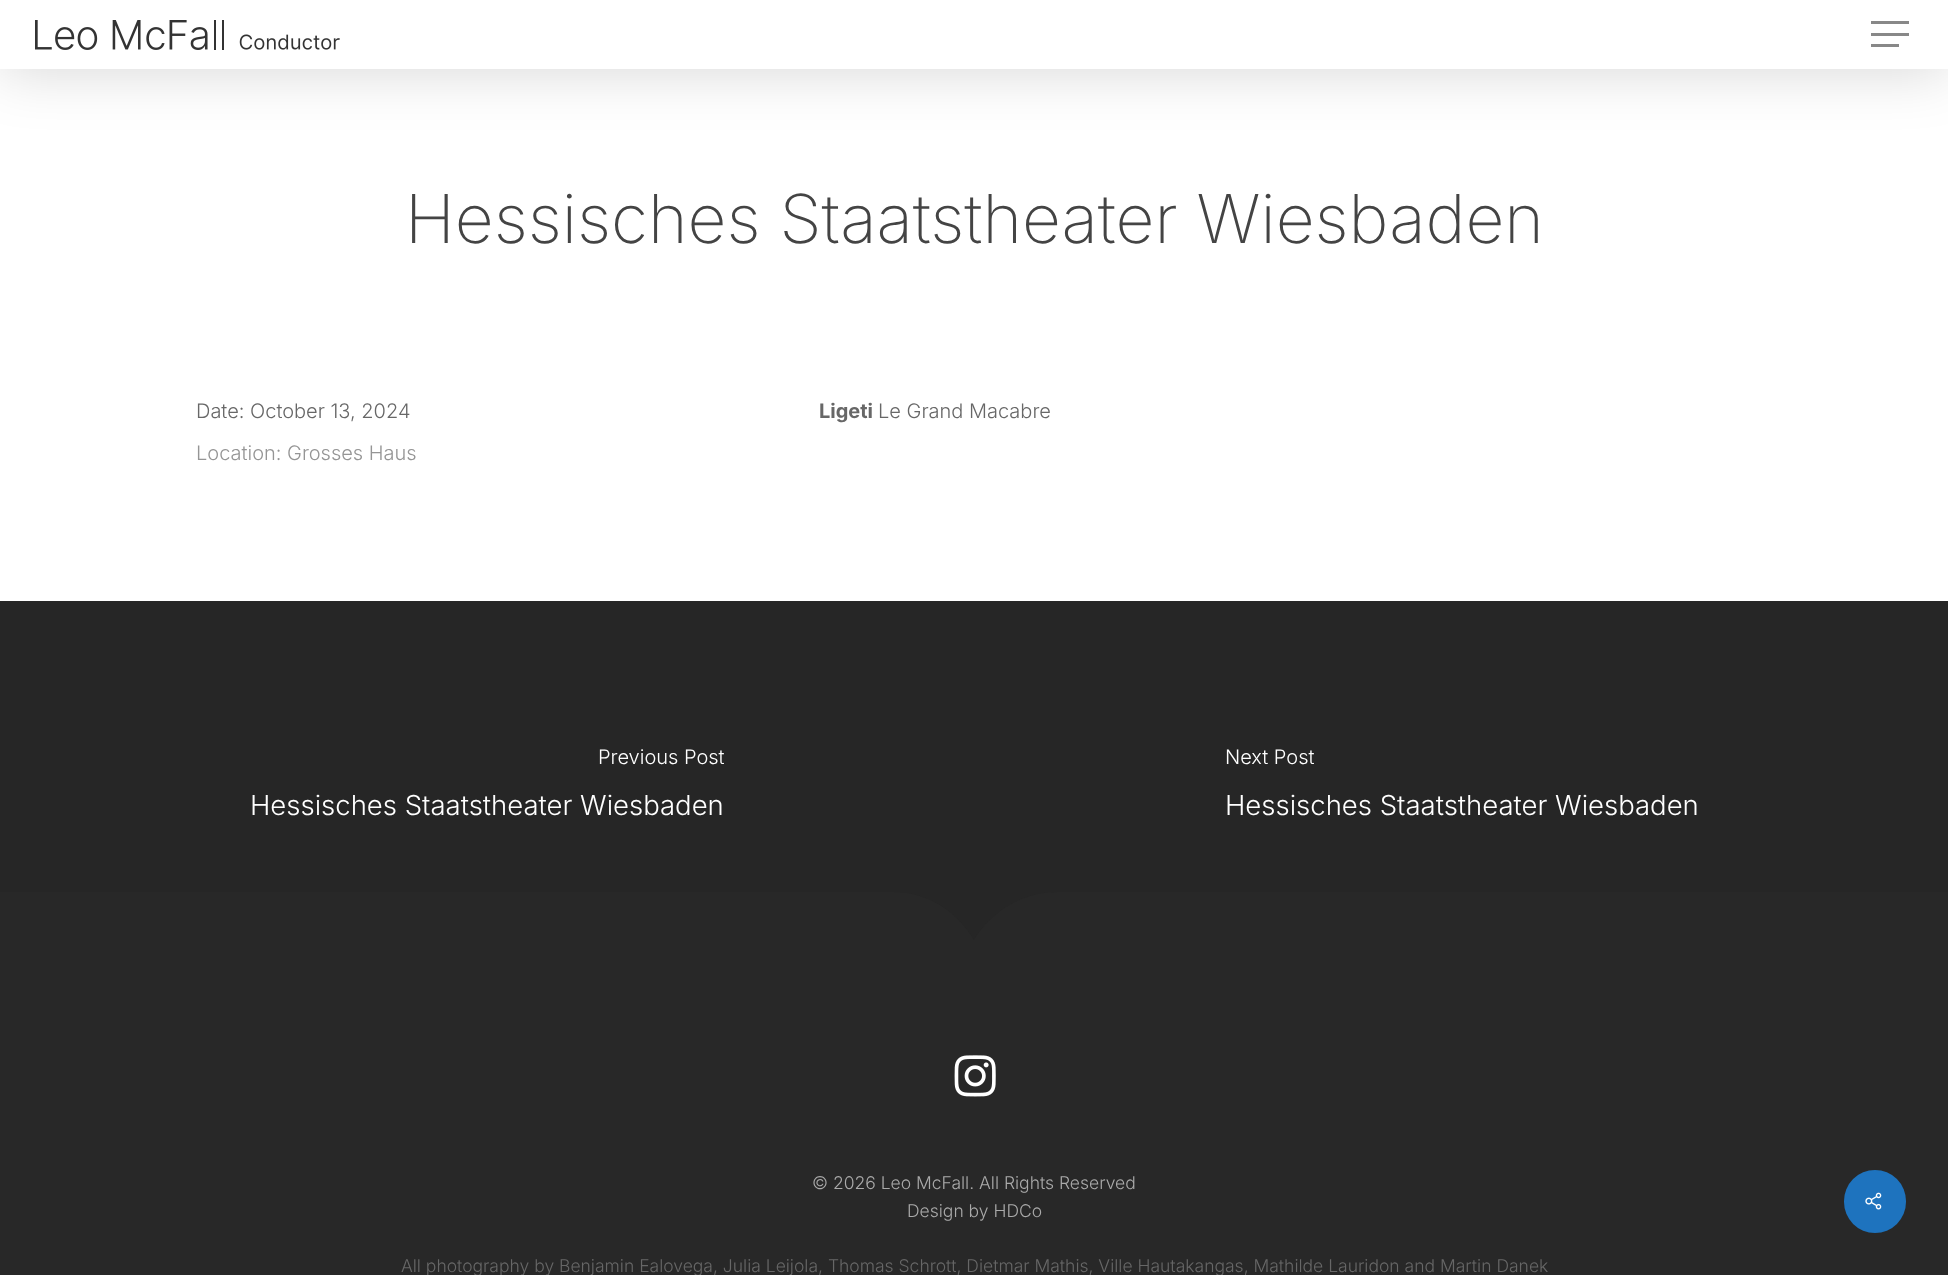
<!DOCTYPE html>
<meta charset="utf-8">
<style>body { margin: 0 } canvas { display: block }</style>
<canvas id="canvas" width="1948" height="1275"></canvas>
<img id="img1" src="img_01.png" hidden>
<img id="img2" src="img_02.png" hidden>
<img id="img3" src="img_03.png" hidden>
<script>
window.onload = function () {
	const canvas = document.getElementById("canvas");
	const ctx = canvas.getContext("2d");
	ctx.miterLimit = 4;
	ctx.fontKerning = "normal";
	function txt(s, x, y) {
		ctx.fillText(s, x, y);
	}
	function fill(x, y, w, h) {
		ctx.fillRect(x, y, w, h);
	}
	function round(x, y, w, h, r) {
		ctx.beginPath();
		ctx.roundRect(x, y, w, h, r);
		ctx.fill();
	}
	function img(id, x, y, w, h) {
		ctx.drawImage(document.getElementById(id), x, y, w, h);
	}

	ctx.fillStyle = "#FFFFFF";
	fill(0, 0, 1948, 1275);
	ctx.fillStyle = "rgba(0, 0, 0, 0.15)";
	ctx.filter = "blur(28px)";
	ctx.beginPath();
	ctx.rect(0, 4, 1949, 69);
	ctx.fill();
	ctx.filter = "none";
	ctx.fillStyle = "#FFFFFF";
	fill(0, 0, 1948, 69);
	img("img1", 35, 20, 305, 30);
	ctx.fillStyle = "#888888";
	fill(1871, 21, 38, 3);
	fill(1871, 44, 28, 3);
	fill(1871, 33, 38, 3);
	ctx.fillStyle = "#262626";
	fill(0, 601, 975, 339);
	fill(975, 601, 973, 338);
	ctx.fillStyle = "#282828";
	ctx.beginPath();
	ctx.moveTo(0, 892);
	ctx.lineTo(893, 892);
	ctx.bezierCurveTo(949, 892, 974, 940, 974, 940);
	ctx.bezierCurveTo(974, 940, 1000, 892, 1058, 892);
	ctx.lineTo(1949, 892);
	ctx.lineTo(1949, 1028);
	ctx.lineTo(0, 1028);
	ctx.closePath();
	ctx.fill();
	fill(0, 1028, 1948, 247);
	img("img2", 954, 1055, 42, 42);
	ctx.fillStyle = "#1E73BE";
	round(1844, 1170, 62, 63, 31);
	img("img3", 1865, 1192, 17, 18);
	ctx.font = "200 67.5px Inter";
	ctx.fillStyle = "#444444";
	txt("Hessisches Staatstheater Wiesbaden", 405, 243);
	ctx.font = "300 20px Inter";
	ctx.fillStyle = "#676767";
	txt("Date: October 13, 2024", 196, 418);
	ctx.fillStyle = "#959595";
	txt("Location: Grosses Haus", 196, 460);
	ctx.font = "bold 20px Inter";
	ctx.fillStyle = "#676767";
	txt("Ligeti", 819, 418);
	ctx.font = "300 20px Inter";
	txt("Le Grand Macabre", 878, 418);
	ctx.fillStyle = "#FFFFFF";
	txt("Previous Post", 598, 764);
	ctx.font = "300 27.5px Inter";
	txt("Hessisches Staatstheater Wiesbaden", 250, 815);
	ctx.font = "300 20px Inter";
	txt("Next Post", 1225, 764);
	ctx.font = "300 27.5px Inter";
	txt("Hessisches Staatstheater Wiesbaden", 1225, 815);
	ctx.font = "300 17.5px Inter";
	ctx.fillStyle = "#AAAAAA";
	txt("© 2026 Leo McFall. All Rights Reserved", 812, 1189);
	txt("Design by HDCo", 907, 1217);
	ctx.fillStyle = "#676767";
	txt("All photography by Benjamin Ealovega, Julia Leijola, Thomas Schrott, Dietmar Mathis, Ville Hautakangas, Mathilde Lauridon and Martin Danek", 401, 1272);
};
</script>
